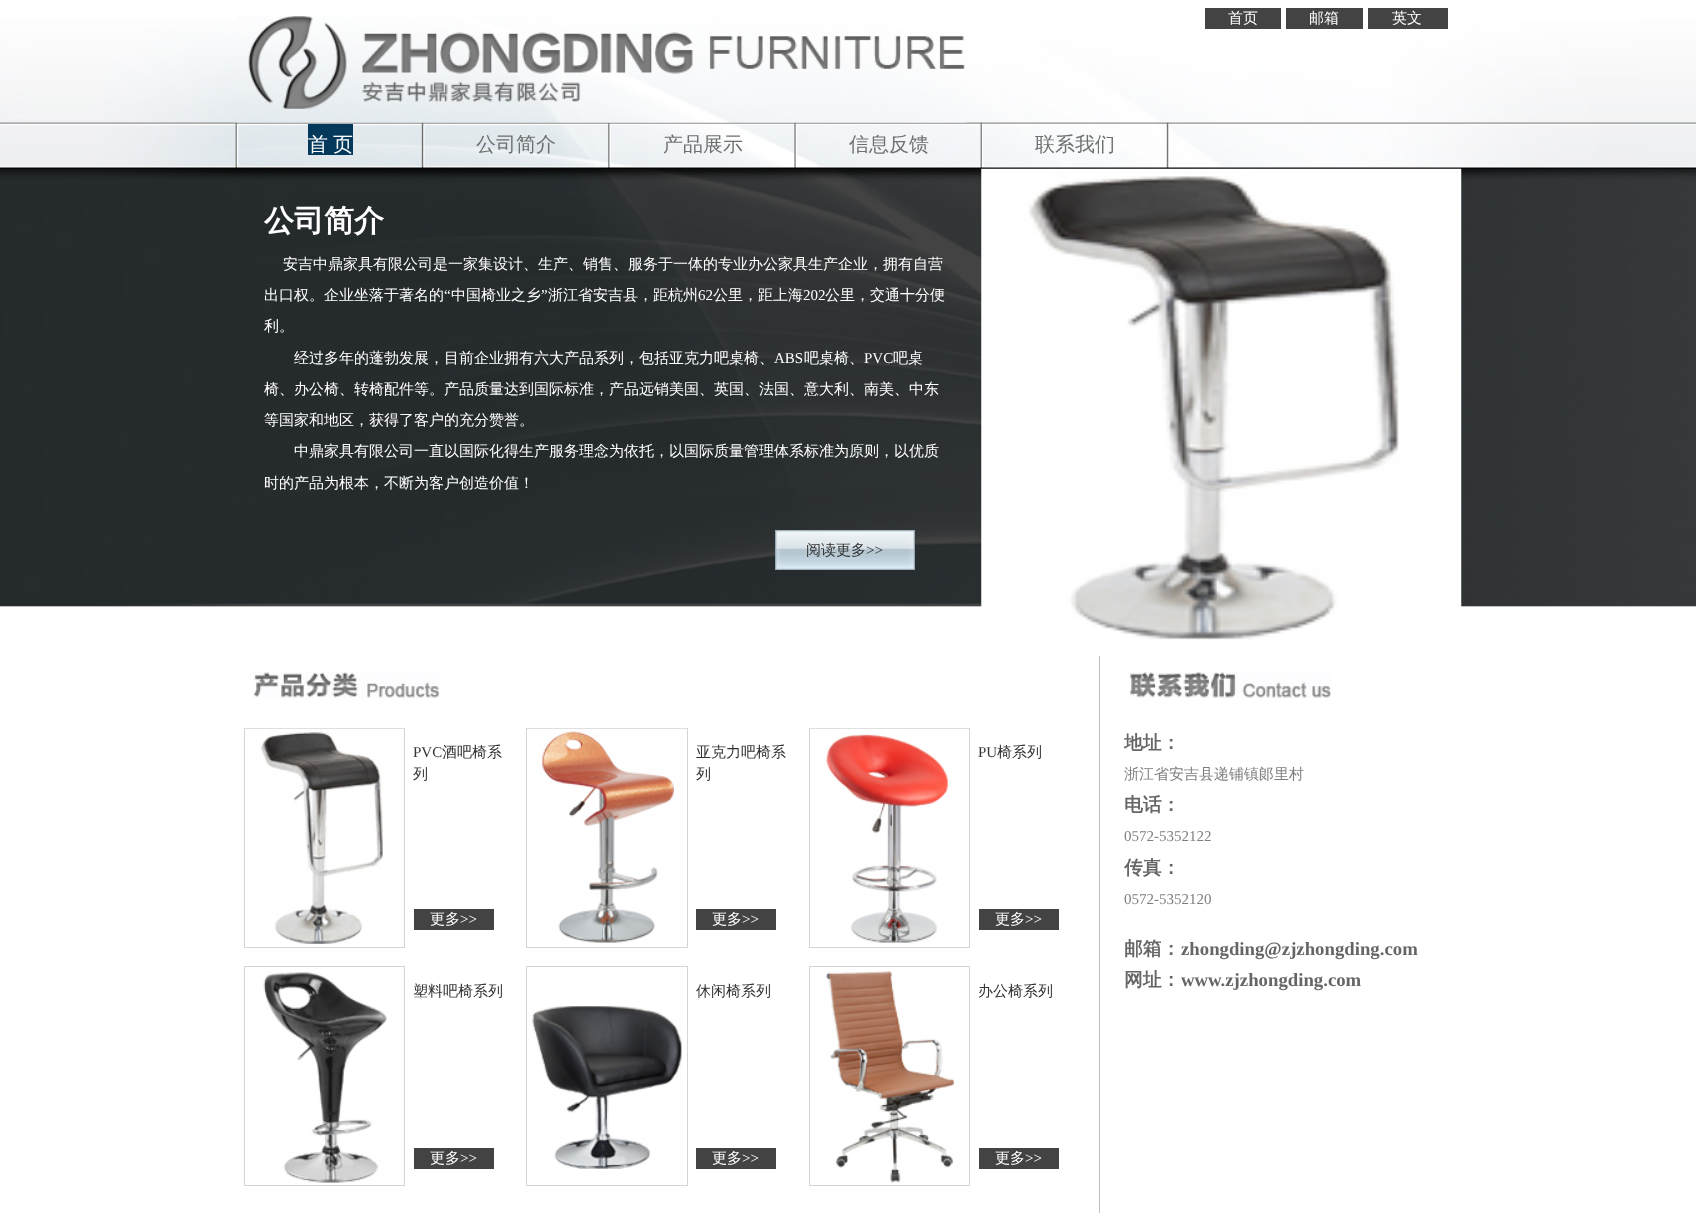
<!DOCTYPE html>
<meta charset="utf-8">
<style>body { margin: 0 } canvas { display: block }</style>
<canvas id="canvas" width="1696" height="1221"></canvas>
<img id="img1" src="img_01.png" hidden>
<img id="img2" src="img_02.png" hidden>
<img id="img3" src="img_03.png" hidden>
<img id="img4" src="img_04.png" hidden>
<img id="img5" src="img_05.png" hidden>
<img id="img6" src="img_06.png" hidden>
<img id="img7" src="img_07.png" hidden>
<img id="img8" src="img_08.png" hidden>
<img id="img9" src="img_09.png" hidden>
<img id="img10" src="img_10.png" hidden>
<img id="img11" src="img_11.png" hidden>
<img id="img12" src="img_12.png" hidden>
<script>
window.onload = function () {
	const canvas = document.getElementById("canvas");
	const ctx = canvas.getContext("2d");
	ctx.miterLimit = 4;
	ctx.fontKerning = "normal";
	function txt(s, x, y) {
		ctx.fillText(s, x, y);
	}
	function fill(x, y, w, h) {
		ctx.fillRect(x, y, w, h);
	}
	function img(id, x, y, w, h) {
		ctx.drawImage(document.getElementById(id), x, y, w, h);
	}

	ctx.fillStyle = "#FFFFFF";
	fill(0, 0, 1696, 1221);
	img("img1", 0, 19, 1696, 588);
	img("img2", 236, 16, 731, 107);
	ctx.fillStyle = "#434343";
	fill(1205, 8, 76, 21);
	fill(1286, 8, 77, 21);
	fill(1368, 8, 80, 21);
	ctx.fillStyle = "#04395B";
	fill(308, 124, 45, 31);
	img("img3", 775, 530, 140, 40);
	img("img4", 981, 168, 481, 472);
	img("img5", 253, 672, 186, 26);
	ctx.strokeStyle = "#D5D5D5";
	ctx.strokeRect(244.5, 728.5, 160, 219);
	img("img6", 245, 728, 159, 216);
	ctx.fillStyle = "#434343";
	fill(414, 909, 80, 21);
	ctx.strokeRect(526.5, 728.5, 161, 219);
	img("img7", 527, 728, 159, 215);
	fill(696, 909, 80, 21);
	ctx.strokeRect(809.5, 728.5, 160, 219);
	img("img8", 810, 728, 159, 215);
	fill(979, 909, 80, 21);
	ctx.strokeRect(244.5, 966.5, 160, 219);
	img("img9", 263, 972, 124, 211);
	fill(414, 1148, 80, 21);
	ctx.strokeRect(526.5, 966.5, 161, 219);
	img("img10", 532, 1006, 150, 163);
	fill(696, 1148, 80, 21);
	ctx.strokeRect(809.5, 966.5, 160, 219);
	img("img11", 826, 971, 128, 212);
	fill(979, 1148, 80, 21);
	ctx.fillStyle = "#BFBFBF";
	fill(1099, 656, 1, 557);
	img("img12", 1129, 672, 203, 26);
	ctx.font = "500 15px WenQuanYi Zen Hei";
	ctx.fillStyle = "#FFFFFF";
	txt("首页", 1228, 23);
	txt("邮箱", 1309, 23);
	txt("英文", 1392, 23);
	ctx.wordSpacing = "-1px";
	ctx.font = "500 20px WenQuanYi Zen Hei";
	txt("首 页", 308, 151);
	ctx.wordSpacing = "0px";
	ctx.fillStyle = "#6E706F";
	txt("公司简介", 476, 151);
	txt("产品展示", 663, 151);
	txt("信息反馈", 849, 151);
	txt("联系我们", 1035, 151);
	ctx.font = "bold 30px WenQuanYi Zen Hei";
	ctx.fillStyle = "#FFFFFF";
	txt("公司简介", 264, 231);
	ctx.font = "500 15px WenQuanYi Zen Hei";
	txt("安吉中鼎家具有限公司是一家集设计、生产、销售、服务于一体的专业办公家具生产企业，拥有自营", 283, 269);
	txt("出口权。企业坐落于著名的", 264, 300);
	ctx.font = "15px Liberation Serif";
	txt("“", 444, 300);
	ctx.font = "500 15px WenQuanYi Zen Hei";
	txt("中国椅业之乡", 451, 300);
	ctx.font = "15px Liberation Serif";
	txt("”", 541, 300);
	ctx.font = "500 15px WenQuanYi Zen Hei";
	txt("浙江省安吉县，距杭州", 548, 300);
	ctx.font = "15px Liberation Serif";
	txt("62", 698, 300);
	ctx.font = "500 15px WenQuanYi Zen Hei";
	txt("公里，距上海", 713, 300);
	ctx.font = "15px Liberation Serif";
	txt("202", 803, 300);
	ctx.font = "500 15px WenQuanYi Zen Hei";
	txt("公里，交通十分便", 825, 300);
	txt("利。", 264, 331);
	txt("经过多年的蓬勃发展，目前企业拥有六大产品系列，包括亚克力吧桌椅、", 294, 363);
	ctx.font = "15px Liberation Serif";
	txt("ABS", 774, 363);
	ctx.font = "500 15px WenQuanYi Zen Hei";
	txt("吧桌椅、", 804, 363);
	ctx.font = "15px Liberation Serif";
	txt("PVC", 864, 363);
	ctx.font = "500 15px WenQuanYi Zen Hei";
	txt("吧桌", 893, 363);
	txt("椅、办公椅、转椅配件等。产品质量达到国际标准，产品远销美国、英国、法国、意大利、南美、中东", 264, 394);
	txt("等国家和地区，获得了客户的充分赞誉。", 264, 425);
	txt("中鼎家具有限公司一直以国际化得生产服务理念为依托，以国际质量管理体系标准为原则，以优质", 294, 456);
	txt("时的产品为根本，不断为客户创造价值！", 264, 488);
	ctx.fillStyle = "#333333";
	txt("阅读更多", 806, 555);
	ctx.font = "15px Liberation Serif";
	txt(">>", 866, 555);
	txt("PVC", 413, 757);
	ctx.font = "500 15px WenQuanYi Zen Hei";
	txt("酒吧椅系", 442, 757);
	txt("列", 413, 779);
	ctx.fillStyle = "#FFFFFF";
	txt("更多", 430, 924);
	ctx.font = "15px Liberation Serif";
	txt(">>", 460, 924);
	ctx.font = "500 15px WenQuanYi Zen Hei";
	ctx.fillStyle = "#333333";
	txt("亚克力吧椅系", 696, 757);
	txt("列", 696, 779);
	ctx.fillStyle = "#FFFFFF";
	txt("更多", 712, 924);
	ctx.font = "15px Liberation Serif";
	txt(">>", 742, 924);
	ctx.fillStyle = "#333333";
	txt("PU", 978, 757);
	ctx.font = "500 15px WenQuanYi Zen Hei";
	txt("椅系列", 997, 757);
	ctx.fillStyle = "#FFFFFF";
	txt("更多", 995, 924);
	ctx.font = "15px Liberation Serif";
	txt(">>", 1025, 924);
	ctx.font = "500 15px WenQuanYi Zen Hei";
	ctx.fillStyle = "#333333";
	txt("塑料吧椅系列", 413, 996);
	ctx.fillStyle = "#FFFFFF";
	txt("更多", 430, 1163);
	ctx.font = "15px Liberation Serif";
	txt(">>", 460, 1163);
	ctx.font = "500 15px WenQuanYi Zen Hei";
	ctx.fillStyle = "#333333";
	txt("休闲椅系列", 696, 996);
	ctx.fillStyle = "#FFFFFF";
	txt("更多", 712, 1163);
	ctx.font = "15px Liberation Serif";
	txt(">>", 742, 1163);
	ctx.font = "500 15px WenQuanYi Zen Hei";
	ctx.fillStyle = "#333333";
	txt("办公椅系列", 978, 996);
	ctx.fillStyle = "#FFFFFF";
	txt("更多", 995, 1163);
	ctx.font = "15px Liberation Serif";
	txt(">>", 1025, 1163);
	ctx.font = "bold 18.75px WenQuanYi Zen Hei";
	ctx.fillStyle = "#666666";
	txt("地址：", 1124, 749);
	ctx.font = "500 15px WenQuanYi Zen Hei";
	ctx.fillStyle = "#7F7F7F";
	txt("浙江省安吉县递铺镇郞里村", 1124, 779);
	ctx.font = "bold 18.75px WenQuanYi Zen Hei";
	ctx.fillStyle = "#666666";
	txt("电话：", 1124, 811);
	ctx.font = "15px Liberation Serif";
	ctx.fillStyle = "#7F7F7F";
	txt("0572-5352122", 1124, 841);
	ctx.font = "bold 18.75px WenQuanYi Zen Hei";
	ctx.fillStyle = "#666666";
	txt("传真：", 1124, 874);
	ctx.font = "15px Liberation Serif";
	ctx.fillStyle = "#7F7F7F";
	txt("0572-5352120", 1124, 904);
	ctx.font = "bold 18.75px WenQuanYi Zen Hei";
	ctx.fillStyle = "#666666";
	txt("邮箱：", 1124, 955);
	ctx.font = "bold 18.75px Liberation Serif";
	txt("zhongding@zjzhongding.com", 1181, 955);
	ctx.font = "bold 18.75px WenQuanYi Zen Hei";
	txt("网址：", 1124, 986);
	ctx.font = "bold 18.75px Liberation Serif";
	txt("www.zjzhongding.com", 1181, 986);
};
</script>
